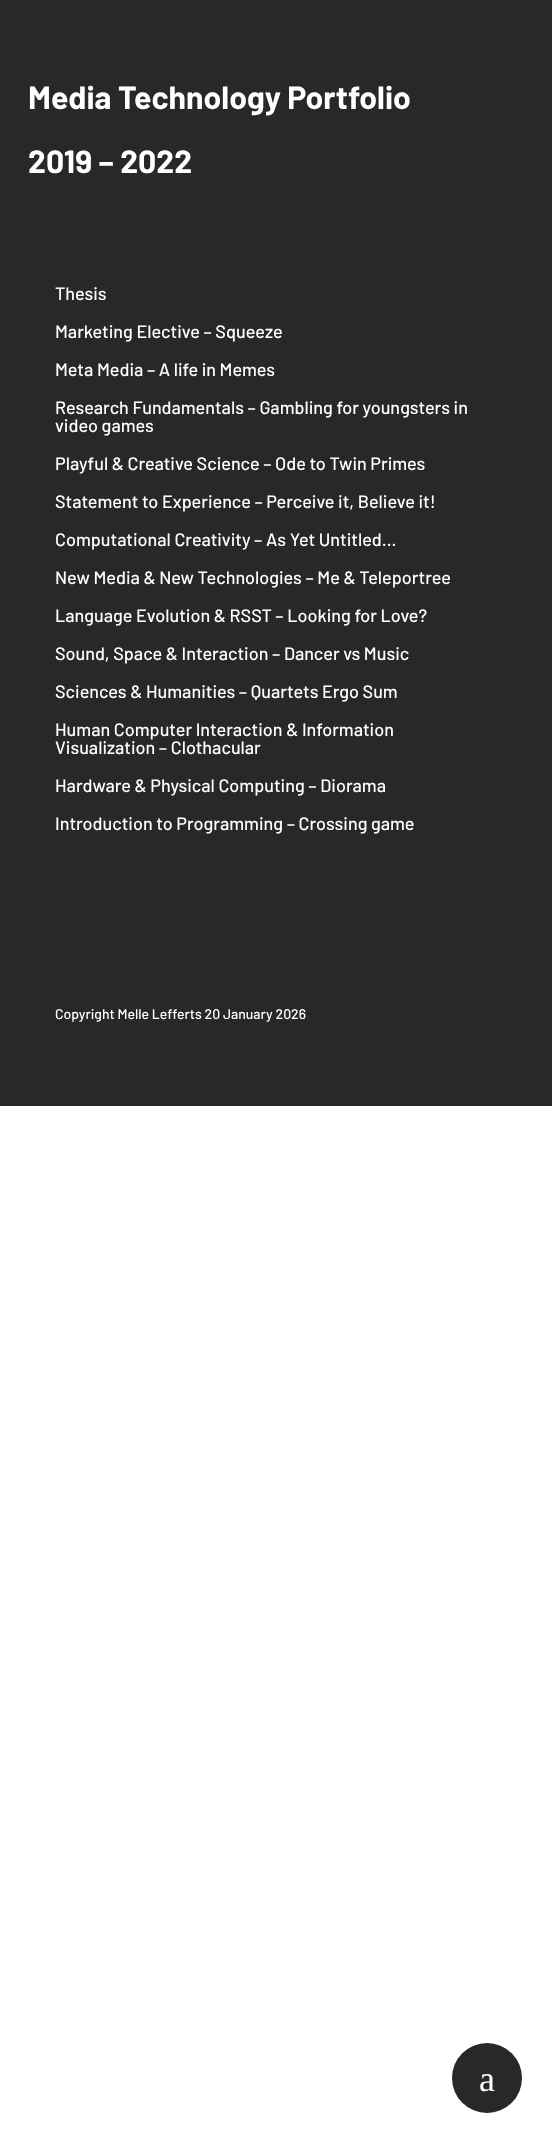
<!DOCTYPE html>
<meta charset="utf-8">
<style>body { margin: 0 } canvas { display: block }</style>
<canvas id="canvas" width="552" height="2143"></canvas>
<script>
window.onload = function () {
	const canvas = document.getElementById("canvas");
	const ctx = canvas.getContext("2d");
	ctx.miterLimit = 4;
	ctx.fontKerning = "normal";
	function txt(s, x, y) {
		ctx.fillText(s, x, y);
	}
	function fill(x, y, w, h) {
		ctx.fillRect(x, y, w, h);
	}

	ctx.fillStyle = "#FFFFFF";
	fill(0, 0, 552, 2143);
	ctx.fillStyle = "#282828";
	fill(0, 0, 552, 1106);
	ctx.beginPath();
	ctx.arc(487, 2078, 35, 0, Math.PI * 2);
	ctx.fill();
	ctx.font = "bold 32px Barlow";
	ctx.fillStyle = "#FFFFFF";
	txt("Media Technology Portfolio", 28, 109);
	txt("2019 – 2022", 28, 173);
	ctx.font = "500 18px Barlow";
	txt("Thesis", 55, 300);
	txt("Marketing Elective – Squeeze", 55, 338);
	txt("Meta Media – A life in Memes", 55, 376);
	txt("Research Fundamentals – Gambling for youngsters in", 55, 414);
	txt("video games", 55, 432);
	txt("Playful & Creative Science – Ode to Twin Primes", 55, 470);
	txt("Statement to Experience – Perceive it, Believe it!", 55, 508);
	txt("Computational Creativity – As Yet Untitled…", 55, 546);
	txt("New Media & New Technologies – Me & Teleportree", 55, 584);
	txt("Language Evolution & RSST – Looking for Love?", 55, 622);
	txt("Sound, Space & Interaction – Dancer vs Music", 55, 660);
	txt("Sciences & Humanities – Quartets Ergo Sum", 55, 698);
	txt("Human Computer Interaction & Information", 55, 736);
	txt("Visualization – Clothacular", 55, 754);
	txt("Hardware & Physical Computing – Diorama", 55, 792);
	txt("Introduction to Programming – Crossing game", 55, 830);
	ctx.font = "500 14px Barlow";
	txt("Copyright Melle Lefferts 20 January 2026", 55, 1019);
	ctx.font = "36px Liberation Serif";
	txt("a", 479, 2091);
};
</script>
